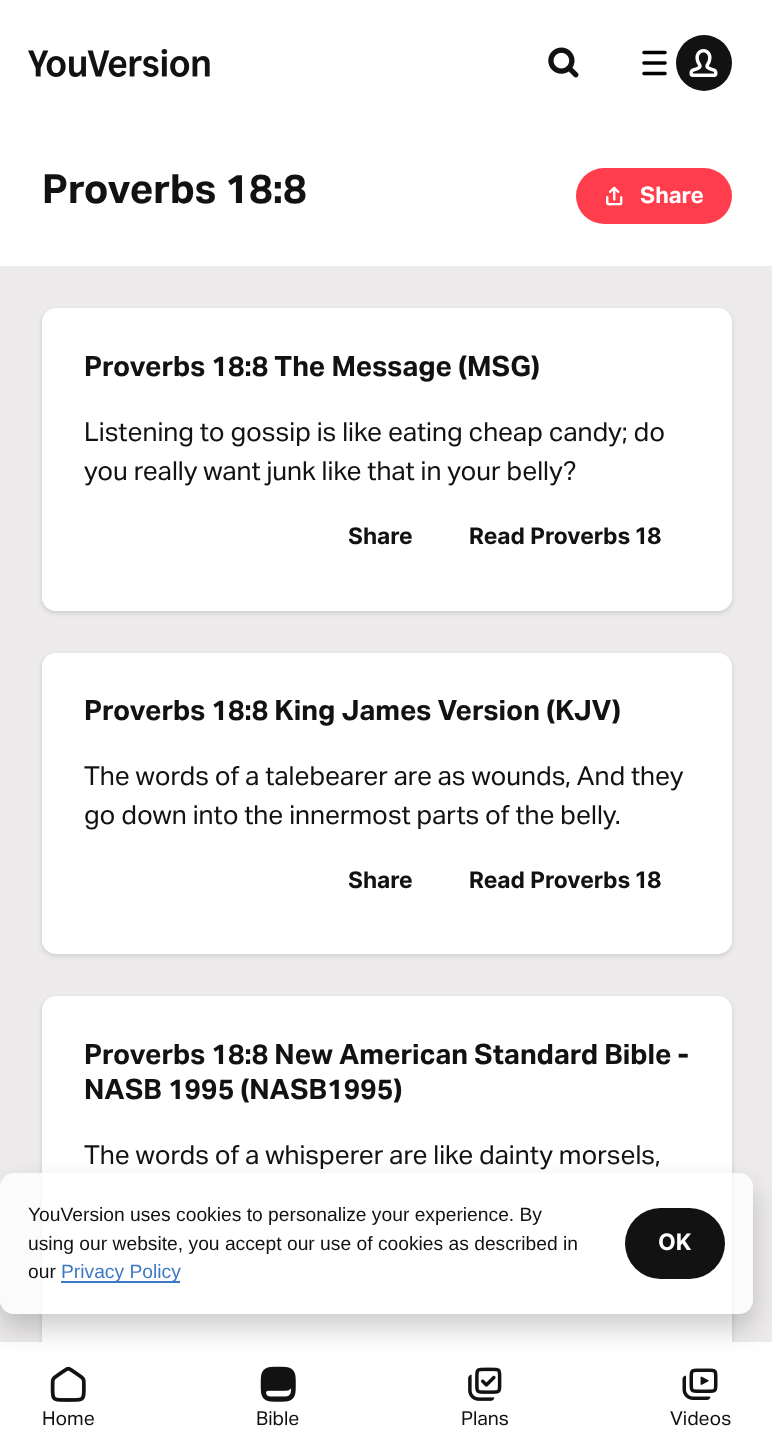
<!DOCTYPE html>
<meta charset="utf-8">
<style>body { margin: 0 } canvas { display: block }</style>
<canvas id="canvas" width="772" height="1454"></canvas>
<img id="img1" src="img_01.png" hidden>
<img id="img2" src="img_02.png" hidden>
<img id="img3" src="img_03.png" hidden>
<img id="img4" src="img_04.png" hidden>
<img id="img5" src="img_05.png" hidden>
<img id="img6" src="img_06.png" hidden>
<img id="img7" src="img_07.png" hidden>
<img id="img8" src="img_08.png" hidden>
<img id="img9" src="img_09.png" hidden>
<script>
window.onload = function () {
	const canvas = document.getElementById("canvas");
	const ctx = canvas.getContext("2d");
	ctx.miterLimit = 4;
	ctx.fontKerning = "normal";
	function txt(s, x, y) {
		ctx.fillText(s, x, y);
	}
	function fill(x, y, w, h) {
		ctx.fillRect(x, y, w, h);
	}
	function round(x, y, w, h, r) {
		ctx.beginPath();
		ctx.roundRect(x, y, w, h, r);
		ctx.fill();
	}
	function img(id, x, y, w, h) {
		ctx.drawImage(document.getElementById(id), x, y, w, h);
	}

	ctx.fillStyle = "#FFFFFF";
	fill(0, 0, 772, 1454);
	img("img1", 28, 49, 182, 28);
	img("img2", 548, 47, 31, 31);
	img("img3", 642, 50, 25, 26);
	ctx.fillStyle = "#121212";
	ctx.beginPath();
	ctx.arc(704, 63, 28, 0, Math.PI * 2);
	ctx.fill();
	img("img4", 689, 49, 29, 28);
	ctx.fillStyle = "#EDEBEB";
	fill(0, 266, 772, 1076);
	ctx.fillStyle = "#FF3D4D";
	round(576, 168, 156, 56, 28);
	img("img5", 606, 186, 17, 20);
	ctx.fillStyle = "rgba(18, 18, 18, 0.15)";
	ctx.filter = "blur(2.5px)";
	ctx.beginPath();
	ctx.roundRect(42, 310, 690, 303, 14);
	ctx.fill();
	ctx.filter = "none";
	ctx.fillStyle = "#FFFFFF";
	round(42, 308, 690, 303, 14);
	ctx.fillStyle = "rgba(18, 18, 18, 0.15)";
	ctx.filter = "blur(2.5px)";
	ctx.beginPath();
	ctx.roundRect(42, 655, 690, 301, 14);
	ctx.fill();
	ctx.filter = "none";
	ctx.fillStyle = "#FFFFFF";
	round(42, 653, 690, 301, 14);
	ctx.fillStyle = "rgba(18, 18, 18, 0.15)";
	ctx.filter = "blur(2.5px)";
	ctx.beginPath();
	ctx.roundRect(42, 998, 690, 376, 14);
	ctx.fill();
	ctx.filter = "none";
	ctx.fillStyle = "#FFFFFF";
	round(42, 996, 690, 376, 14);
	fill(38, 1342, 698, 36);
	img("img6", 50, 1366, 36, 36);
	img("img7", 260, 1366, 36, 36);
	img("img8", 468, 1367, 34, 34);
	img("img9", 682, 1368, 36, 32);
	ctx.save();
	ctx.beginPath();
	ctx.moveTo(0, 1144);
	ctx.lineTo(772, 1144);
	ctx.lineTo(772, 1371);
	ctx.lineTo(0, 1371);
	ctx.closePath();
	ctx.moveTo(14, 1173);
	ctx.lineTo(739, 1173);
	ctx.bezierCurveTo(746.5, 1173, 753, 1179.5, 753, 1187);
	ctx.lineTo(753, 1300);
	ctx.bezierCurveTo(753, 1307.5, 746.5, 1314, 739, 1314);
	ctx.lineTo(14, 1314);
	ctx.bezierCurveTo(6.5, 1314, 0, 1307.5, 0, 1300);
	ctx.lineTo(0, 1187);
	ctx.bezierCurveTo(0, 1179.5, 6.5, 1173, 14, 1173);
	ctx.closePath();
	ctx.clip("evenodd");
	ctx.fillStyle = "rgba(0, 0, 0, 0.2)";
	ctx.filter = "blur(14px)";
	ctx.beginPath();
	ctx.roundRect(0, 1187, 753, 141, 14);
	ctx.fill();
	ctx.filter = "none";
	ctx.restore();
	ctx.fillStyle = "rgba(255, 255, 255, 0.8)";
	round(0, 1173, 753, 141, 14);
	ctx.fillStyle = "#3D79C2";
	fill(61, 1281, 119, 2);
	ctx.fillStyle = "#121212";
	round(625, 1208, 100, 71, 35.5);
	ctx.font = "bold 40.25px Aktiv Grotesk";
	txt("Proverbs 18:8", 42, 203);
	ctx.font = "bold 22.75px Aktiv Grotesk";
	ctx.fillStyle = "#FFFFFF";
	txt("Share", 640, 203);
	ctx.font = "bold 28px Aktiv Grotesk";
	ctx.fillStyle = "#121212";
	txt("Proverbs 18:8 The Message (MSG", 84, 376);
	txt(")", 531, 376);
	ctx.font = "26.25px Aktiv Grotesk";
	txt("Listening to gossip is like eating cheap candy; do", 84, 441);
	txt("you really want junk like that in your belly?", 84, 480);
	ctx.font = "bold 22.75px Inter";
	txt("Share", 348, 544);
	txt("Read Proverbs 18", 469, 544);
	ctx.font = "bold 28px Aktiv Grotesk";
	txt("Proverbs 18:8 King James Version (KJV", 84, 720);
	txt(")", 612, 720);
	ctx.font = "26.25px Aktiv Grotesk";
	txt("The words of a talebearer are as wounds, And they", 84, 785);
	txt("go down into the innermost parts of the belly.", 84, 824);
	ctx.font = "bold 22.75px Inter";
	txt("Share", 348, 888);
	txt("Read Proverbs 18", 469, 888);
	ctx.font = "bold 28px Aktiv Grotesk";
	txt("Proverbs 18:8 New American Standard Bible -", 84, 1064);
	txt("NASB 1995 (NASB1995)", 84, 1099);
	ctx.font = "26.25px Aktiv Grotesk";
	txt("The words of a whisperer are like dainty morsels,", 84, 1164);
	ctx.font = "19.25px Liberation Sans";
	txt("YouVersion uses cookies to personalize your experience. By", 28, 1221);
	txt("using our website, you accept our use of cookies as described in", 28, 1250);
	txt("our", 28, 1278);
	ctx.fillStyle = "#3D79C2";
	txt("Privacy Policy", 61, 1278);
	ctx.font = "bold 22.75px Inter";
	ctx.fillStyle = "#FFFFFF";
	txt("OK", 658, 1250);
	ctx.font = "19.25px Aktiv Grotesk";
	ctx.fillStyle = "#121212";
	txt("Home", 42, 1425);
	txt("Bible", 256, 1425);
	txt("Plans", 461, 1425);
	txt("Videos", 670, 1425);
};
</script>
